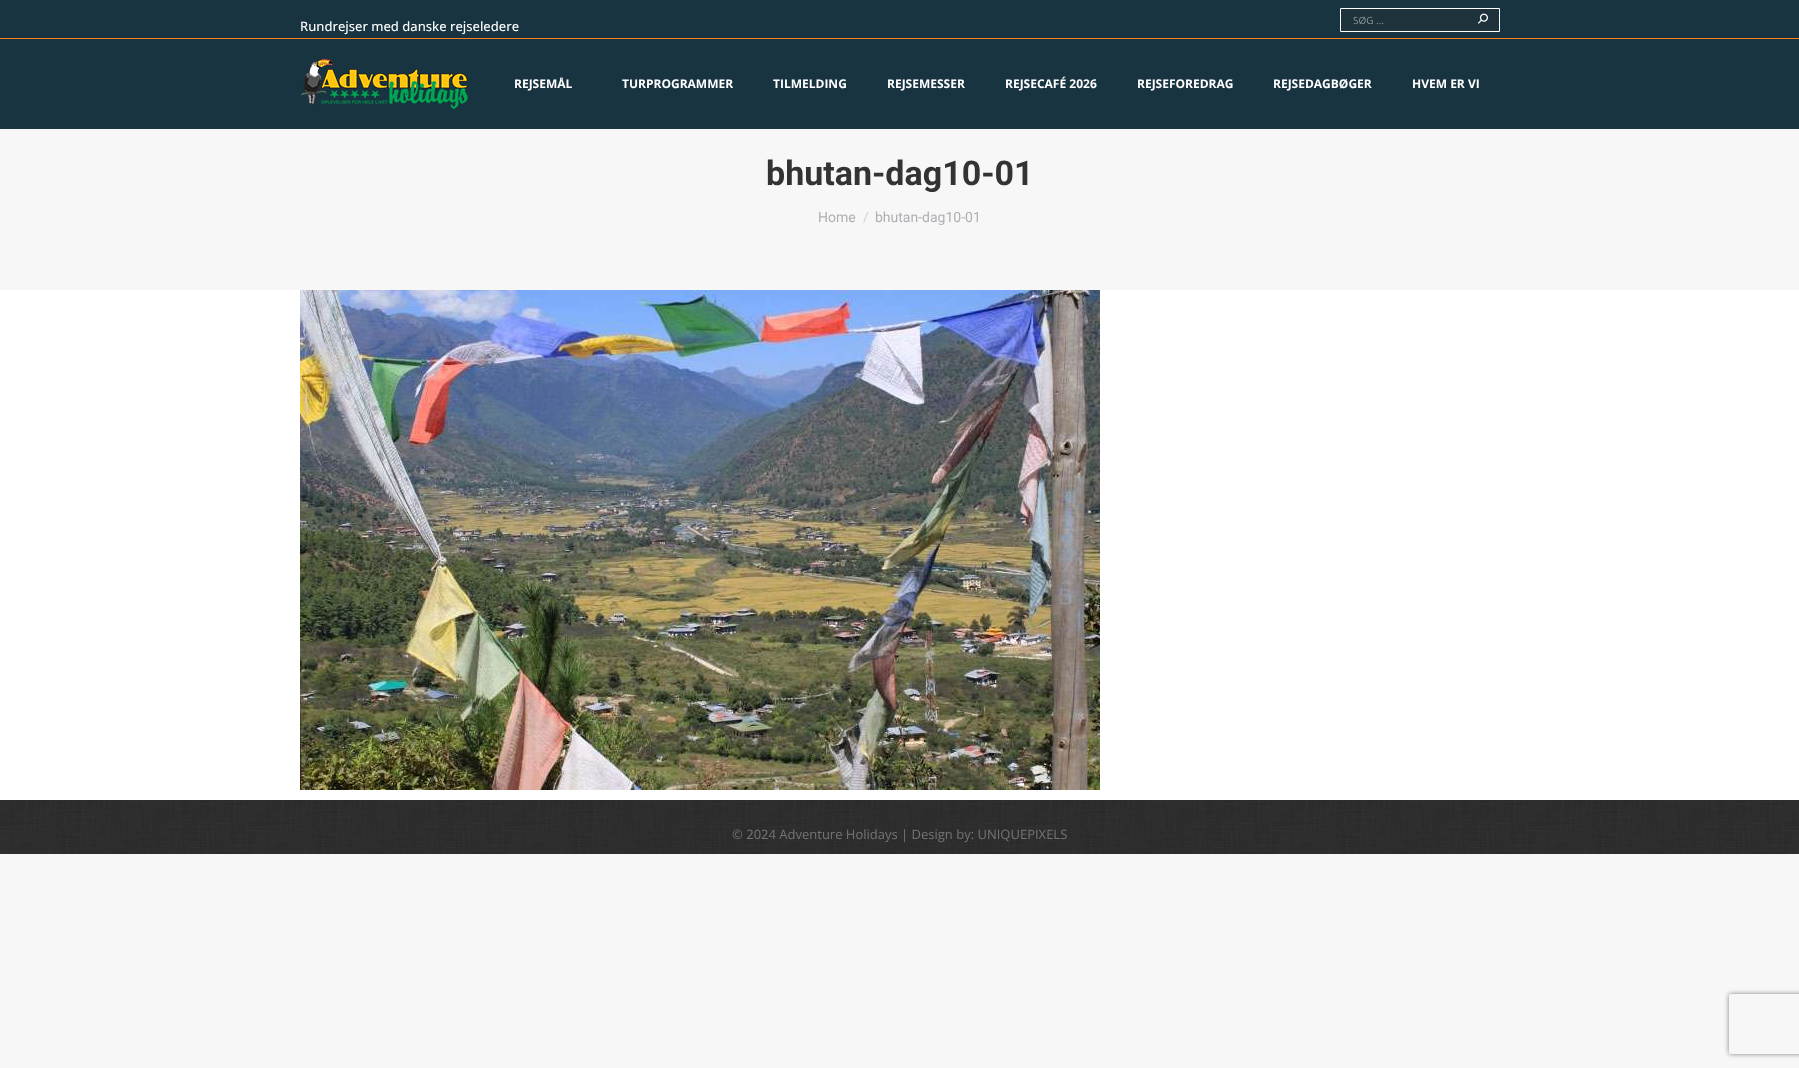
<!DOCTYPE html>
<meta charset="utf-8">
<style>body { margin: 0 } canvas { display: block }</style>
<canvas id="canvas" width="1799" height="1068"></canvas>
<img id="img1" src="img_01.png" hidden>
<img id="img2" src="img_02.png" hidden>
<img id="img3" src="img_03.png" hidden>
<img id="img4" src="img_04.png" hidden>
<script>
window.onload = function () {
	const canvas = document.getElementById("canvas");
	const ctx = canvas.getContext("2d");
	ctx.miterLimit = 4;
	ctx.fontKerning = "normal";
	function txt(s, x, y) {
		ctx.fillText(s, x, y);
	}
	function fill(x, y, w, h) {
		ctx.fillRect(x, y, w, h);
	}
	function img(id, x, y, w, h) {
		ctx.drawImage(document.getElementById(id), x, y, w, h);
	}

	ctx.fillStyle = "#F7F7F7";
	fill(0, 0, 1799, 1068);
	ctx.fillStyle = "#FFFFFF";
	fill(0, 290, 1799, 510);
	ctx.fillStyle = "#193441";
	fill(0, 0, 1799, 129);
	ctx.fillStyle = "#1D323A";
	ctx.beginPath();
	ctx.rect(1340.5, 8.5, 159, 23);
	ctx.fill();
	ctx.strokeStyle = "#FFFFFF";
	ctx.stroke();
	img("img1", 1478, 13, 10, 11);
	ctx.fillStyle = "#F7801F";
	fill(0, 38, 1799, 1);
	img("img2", 300, 59, 168, 50);
	img("img3", 300, 290, 800, 500);
	img("img4", 0, 800, 1799, 54);
	ctx.save();
	ctx.beginPath();
	ctx.moveTo(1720, 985);
	ctx.lineTo(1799, 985);
	ctx.lineTo(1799, 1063);
	ctx.lineTo(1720, 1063);
	ctx.closePath();
	ctx.moveTo(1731, 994);
	ctx.lineTo(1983, 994);
	ctx.bezierCurveTo(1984, 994, 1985, 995, 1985, 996);
	ctx.lineTo(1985, 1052);
	ctx.bezierCurveTo(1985, 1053, 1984, 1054, 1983, 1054);
	ctx.lineTo(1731, 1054);
	ctx.bezierCurveTo(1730, 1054, 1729, 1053, 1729, 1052);
	ctx.lineTo(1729, 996);
	ctx.bezierCurveTo(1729, 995, 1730, 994, 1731, 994);
	ctx.closePath();
	ctx.clip("evenodd");
	ctx.fillStyle = "#808080";
	ctx.filter = "blur(2.5px)";
	ctx.beginPath();
	ctx.roundRect(1729, 994, 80, 60, 2);
	ctx.fill();
	ctx.filter = "none";
	ctx.restore();
	ctx.font = "500 13px Open Sans";
	ctx.fillStyle = "#FFFFFF";
	txt("Rundrejser med danske rejseledere", 300, 31);
	ctx.font = "10px Open Sans";
	ctx.fillStyle = "#8E999D";
	txt("SØG …", 1353, 24);
	ctx.font = "bold 12px Open Sans";
	ctx.fillStyle = "#FFFFFF";
	txt("REJSEMÅL", 514, 88);
	txt("TURPROGRAMMER", 622, 88);
	txt("TILMELDING", 773, 88);
	txt("REJSEMESSER", 887, 88);
	txt("REJSECAFÉ 2026", 1005, 88);
	txt("REJSEFOREDRAG", 1137, 88);
	txt("REJSEDAGBØGER", 1273, 88);
	txt("HVEM ER VI", 1412, 88);
	ctx.font = "bold 34px Roboto";
	ctx.fillStyle = "#333333";
	txt("bhutan-dag10-01", 766, 185);
	ctx.font = "14px Roboto";
	ctx.fillStyle = "#ADAFB3";
	txt("Home", 818, 222);
	ctx.fillStyle = "#D2D3D5";
	txt("/", 863, 222);
	ctx.fillStyle = "#ADAFB3";
	txt("bhutan-dag10-01", 875, 222);
	ctx.font = "13px Open Sans";
	ctx.fillStyle = "#757575";
	txt("© 2024 Adventure Holidays | Design by: UNIQUEPIXELS", 732, 839);
};
</script>
